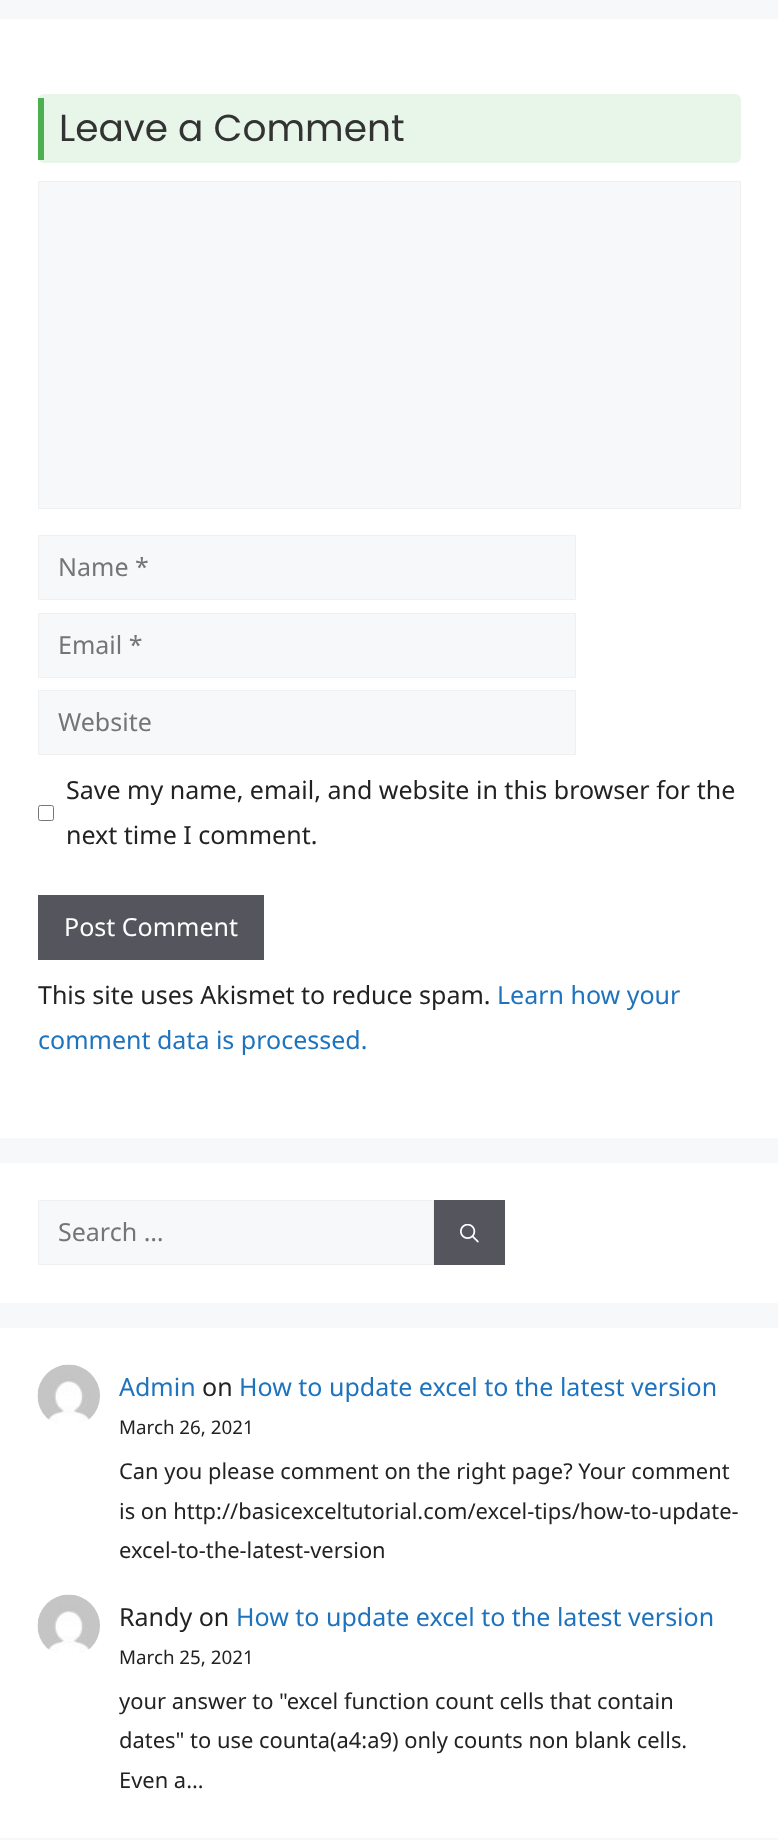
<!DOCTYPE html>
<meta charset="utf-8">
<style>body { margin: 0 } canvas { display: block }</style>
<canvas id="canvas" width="778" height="1840"></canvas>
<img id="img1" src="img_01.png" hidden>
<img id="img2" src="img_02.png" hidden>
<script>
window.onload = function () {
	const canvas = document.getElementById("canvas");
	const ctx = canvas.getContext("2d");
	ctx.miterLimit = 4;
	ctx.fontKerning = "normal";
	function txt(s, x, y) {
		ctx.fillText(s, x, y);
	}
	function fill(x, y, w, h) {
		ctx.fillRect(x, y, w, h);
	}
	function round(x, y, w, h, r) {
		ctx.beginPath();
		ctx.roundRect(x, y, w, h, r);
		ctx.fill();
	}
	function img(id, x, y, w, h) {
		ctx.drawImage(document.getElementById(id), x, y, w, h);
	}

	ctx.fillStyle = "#F7F8F9";
	fill(0, 0, 778, 1840);
	ctx.fillStyle = "#FFFFFF";
	fill(0, 19, 778, 1119);
	ctx.fillStyle = "#E8F5E9";
	round(38, 94, 703, 69, 6);
	ctx.fillStyle = "#4CAF50";
	fill(38, 98, 6, 62);
	ctx.fillStyle = "#F7F8F9";
	ctx.beginPath();
	ctx.rect(38.5, 181.5, 702, 327);
	ctx.fill();
	ctx.strokeStyle = "#F0F0F0";
	ctx.stroke();
	ctx.beginPath();
	ctx.rect(38.5, 535.5, 537, 64);
	ctx.fill();
	ctx.stroke();
	ctx.beginPath();
	ctx.rect(38.5, 613.5, 537, 64);
	ctx.fill();
	ctx.stroke();
	ctx.beginPath();
	ctx.rect(38.5, 690.5, 537, 64);
	ctx.fill();
	ctx.stroke();
	ctx.beginPath();
	ctx.roundRect(38.5, 805.5, 15, 15, 2);
	ctx.strokeStyle = "#767676";
	ctx.stroke();
	ctx.fillStyle = "#55555E";
	fill(38, 895, 226, 65);
	ctx.fillStyle = "#FFFFFF";
	fill(0, 1163, 778, 140);
	ctx.fillStyle = "#F7F8F9";
	ctx.beginPath();
	ctx.rect(38.5, 1200.5, 395, 64);
	ctx.fill();
	ctx.strokeStyle = "#F0F0F0";
	ctx.stroke();
	ctx.fillStyle = "#55555E";
	fill(434, 1200, 71, 65);
	img("img1", 460, 1224, 19, 19);
	ctx.fillStyle = "#FFFFFF";
	fill(0, 1328, 778, 510);
	img("img2", 37, 1364, 63, 59);
	img("img2", 37, 1594, 63, 59);
	ctx.font = "37.5px Poppins";
	ctx.fillStyle = "#333333";
	txt("Leave a Comment", 59, 141);
	ctx.font = "25px Noto Sans";
	ctx.fillStyle = "#757575";
	txt("Name *", 58, 576);
	txt("Email *", 58, 654);
	txt("Website", 58, 731);
	ctx.fillStyle = "#222222";
	txt("Save my name, email, and website in this browser for the", 66, 799);
	txt("next time I comment.", 66, 844);
	ctx.fillStyle = "#FFFFFF";
	txt("Post Comment", 64, 936);
	ctx.fillStyle = "#222222";
	txt("This site uses Akismet to reduce spam.", 38, 1004);
	ctx.fillStyle = "#1E73BE";
	txt("Learn how your", 497, 1004);
	txt("comment data is processed.", 38, 1049);
	ctx.fillStyle = "#757575";
	txt("Search …", 58, 1241);
	ctx.fillStyle = "#1E73BE";
	txt("Admin", 119, 1396);
	ctx.fillStyle = "#222222";
	txt("on", 202, 1396);
	ctx.fillStyle = "#1E73BE";
	txt("How to update excel to the latest version", 239, 1396);
	ctx.font = "18.75px Noto Sans";
	ctx.fillStyle = "#222222";
	txt("March 26, 2021", 119, 1434);
	ctx.font = "21.9px Noto Sans";
	txt("Can you please comment on the right page? Your comment", 119, 1479);
	txt("is on http://basicexceltutorial.com/excel-tips/how-to-update-", 119, 1519);
	txt("excel-to-the-latest-version", 119, 1558);
	ctx.font = "25px Noto Sans";
	txt("Randy on", 119, 1626);
	ctx.fillStyle = "#1E73BE";
	txt("How to update excel to the latest version", 236, 1626);
	ctx.font = "18.75px Noto Sans";
	ctx.fillStyle = "#222222";
	txt("March 25, 2021", 119, 1664);
	ctx.font = "21.9px Noto Sans";
	txt("your answer to \"excel function count cells that contain", 119, 1709);
	txt("dates\" to use counta(a4:a9) only counts non blank cells.", 119, 1748);
	txt("Even a…", 119, 1788);
};
</script>
